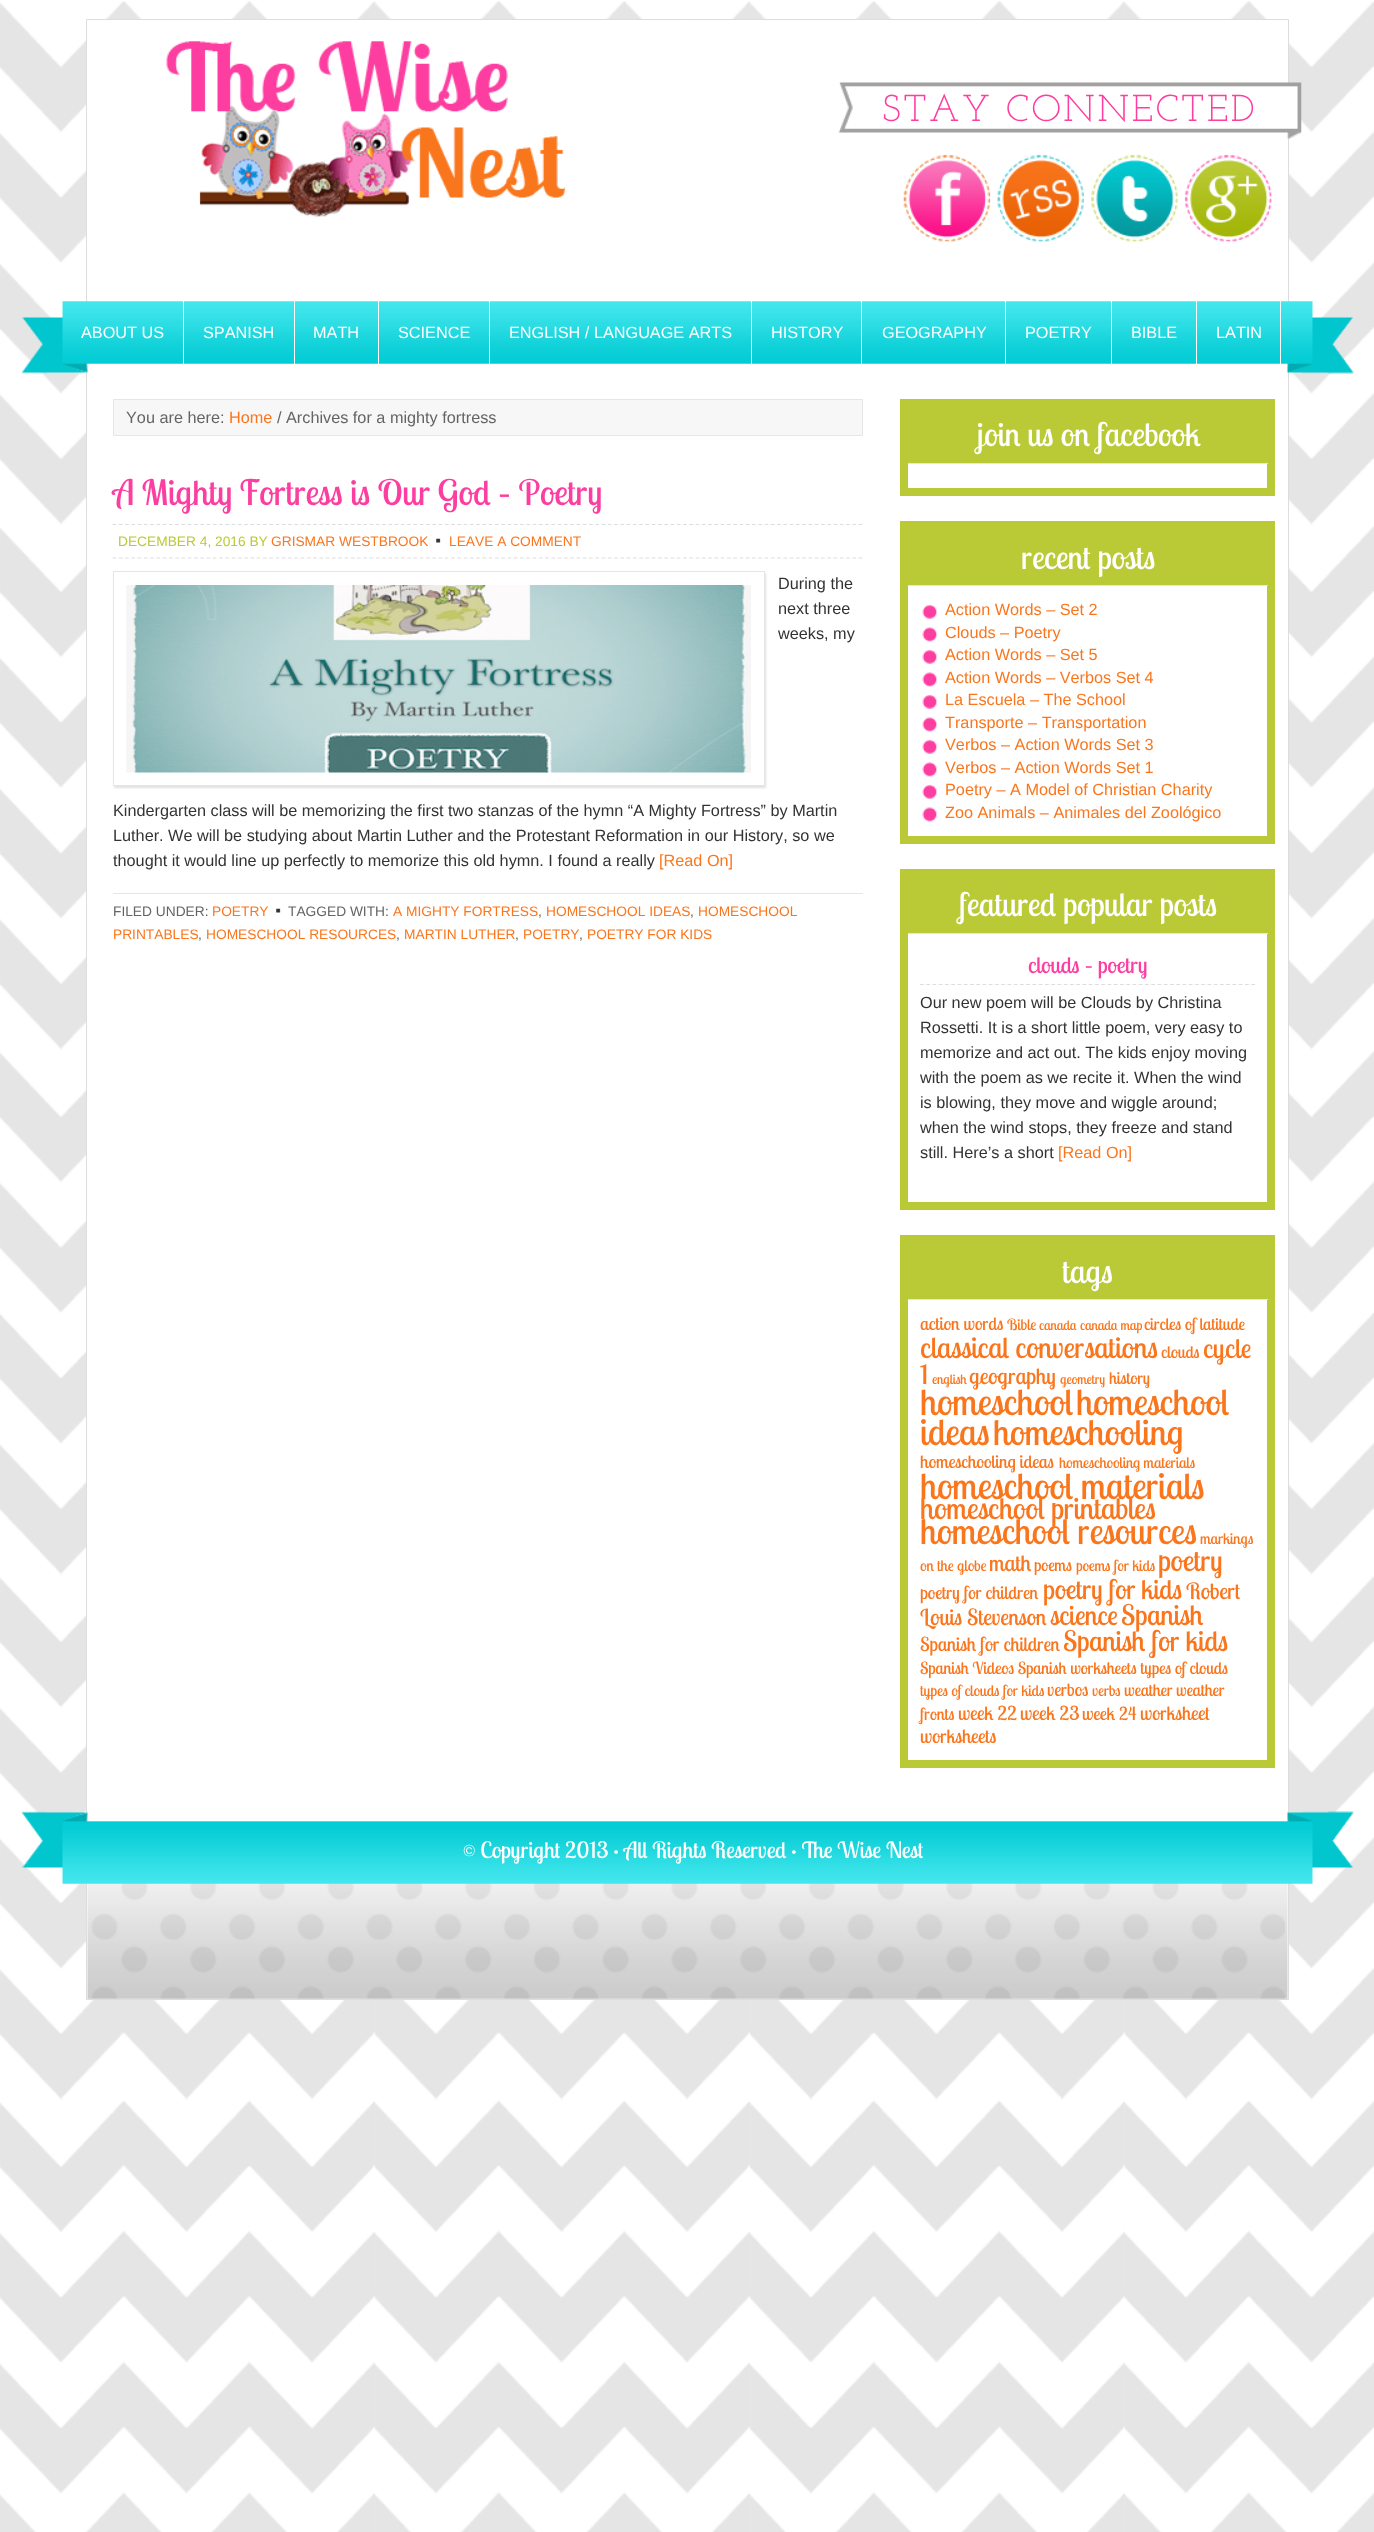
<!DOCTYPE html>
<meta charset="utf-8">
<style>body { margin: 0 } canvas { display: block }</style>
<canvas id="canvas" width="1374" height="2532"></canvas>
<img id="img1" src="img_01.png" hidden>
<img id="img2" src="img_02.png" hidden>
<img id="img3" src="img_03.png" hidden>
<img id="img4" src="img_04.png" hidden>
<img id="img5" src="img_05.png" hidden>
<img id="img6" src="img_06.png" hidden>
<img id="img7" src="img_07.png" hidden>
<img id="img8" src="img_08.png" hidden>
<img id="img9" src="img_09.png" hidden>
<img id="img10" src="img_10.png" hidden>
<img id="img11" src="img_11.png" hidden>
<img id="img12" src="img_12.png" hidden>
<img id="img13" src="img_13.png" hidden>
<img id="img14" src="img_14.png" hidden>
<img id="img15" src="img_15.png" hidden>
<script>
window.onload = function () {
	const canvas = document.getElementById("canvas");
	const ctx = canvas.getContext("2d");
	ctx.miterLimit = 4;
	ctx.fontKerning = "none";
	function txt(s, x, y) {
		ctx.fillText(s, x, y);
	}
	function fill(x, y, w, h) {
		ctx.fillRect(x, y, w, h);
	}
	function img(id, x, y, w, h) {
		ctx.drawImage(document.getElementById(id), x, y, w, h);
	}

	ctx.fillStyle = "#FFFFFF";
	fill(0, 0, 1374, 2532);
	img("img1", 0, 1, 1374, 2531);
	ctx.beginPath();
	ctx.rect(86.5, 19.5, 1202, 1980);
	ctx.fill();
	ctx.strokeStyle = "#DDDDDD";
	ctx.stroke();
	img("img2", 166, 41, 400, 177);
	img("img3", 838, 82, 464, 57);
	img("img4", 903, 154, 88, 88);
	img("img5", 997, 154, 87, 88);
	img("img6", 1091, 154, 87, 88);
	img("img7", 1184, 154, 88, 88);
	img("img8", 21, 301, 1333, 73);
	fill(183, 301, 1, 63);
	fill(294, 301, 1, 63);
	fill(378, 301, 1, 63);
	fill(489, 301, 1, 63);
	fill(751, 301, 1, 63);
	fill(861, 301, 1, 63);
	fill(1005, 301, 1, 63);
	fill(1111, 301, 1, 63);
	fill(1196, 301, 1, 63);
	fill(1280, 301, 1, 63);
	ctx.fillStyle = "#F7F7F7";
	ctx.beginPath();
	ctx.rect(113.5, 399.5, 749, 36);
	ctx.fill();
	ctx.strokeStyle = "#E6E6E6";
	ctx.stroke();
	ctx.beginPath();
	ctx.moveTo(112.5, 524.5);
	ctx.lineTo(862.5, 524.5);
	ctx.strokeStyle = "#DDDDDD";
	ctx.lineWidth = 1.2;
	ctx.setLineDash([3.75, 2.52]);
	ctx.stroke();
	ctx.beginPath();
	ctx.moveTo(112.5, 558);
	ctx.lineTo(862.5, 558);
	ctx.stroke();
	img("img9", 436, 538, 5, 5);
	ctx.save();
	ctx.beginPath();
	ctx.moveTo(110, 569);
	ctx.lineTo(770, 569);
	ctx.lineTo(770, 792);
	ctx.lineTo(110, 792);
	ctx.closePath();
	ctx.moveTo(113, 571);
	ctx.lineTo(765, 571);
	ctx.lineTo(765, 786);
	ctx.lineTo(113, 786);
	ctx.closePath();
	ctx.clip("evenodd");
	ctx.fillStyle = "#E0E0E0";
	ctx.filter = "blur(1px)";
	ctx.beginPath();
	ctx.rect(114, 573, 652, 215);
	ctx.fill();
	ctx.filter = "none";
	ctx.restore();
	ctx.strokeStyle = "#E6E6E6";
	ctx.lineWidth = 1;
	ctx.setLineDash([]);
	ctx.strokeRect(113.5, 571.5, 651, 214);
	img("img10", 126, 585, 625, 188);
	ctx.fillStyle = "#E6E6E6";
	fill(113, 893, 750, 1);
	img("img9", 276, 908, 5, 5);
	ctx.strokeStyle = "#BACA37";
	ctx.lineWidth = 8;
	ctx.strokeRect(904, 403, 367, 89);
	ctx.fillStyle = "#BACA37";
	fill(908, 407, 359, 56);
	ctx.fillStyle = "#E6E6E6";
	fill(908, 463, 360, 1);
	ctx.strokeRect(904, 525, 367, 315);
	ctx.fillStyle = "#BACA37";
	fill(908, 529, 359, 56);
	ctx.fillStyle = "#E6E6E6";
	fill(908, 585, 360, 1);
	img("img11", 922, 604, 16, 15);
	img("img12", 922, 627, 16, 15);
	img("img11", 922, 649, 16, 15);
	img("img12", 922, 672, 16, 15);
	img("img11", 922, 694, 16, 15);
	img("img12", 922, 717, 16, 15);
	img("img11", 922, 739, 16, 15);
	img("img12", 922, 762, 16, 15);
	img("img13", 922, 784, 16, 15);
	img("img12", 922, 807, 16, 15);
	ctx.strokeRect(904, 873, 367, 333);
	ctx.fillStyle = "#BACA37";
	fill(908, 877, 359, 56);
	ctx.fillStyle = "#E6E6E6";
	fill(908, 933, 360, 1);
	ctx.beginPath();
	ctx.moveTo(920, 984.5);
	ctx.lineTo(1255, 984.5);
	ctx.strokeStyle = "#DDDDDD";
	ctx.lineWidth = 1.2;
	ctx.setLineDash([3.75, 2.5]);
	ctx.stroke();
	ctx.strokeStyle = "#BACA37";
	ctx.lineWidth = 8;
	ctx.setLineDash([]);
	ctx.strokeRect(904, 1239, 367, 525);
	ctx.fillStyle = "#BACA37";
	fill(908, 1243, 359, 56);
	ctx.fillStyle = "#E6E6E6";
	fill(908, 1299, 360, 1);
	img("img14", 87, 1883, 1201, 116);
	img("img15", 21, 1811, 1333, 73);
	ctx.letterSpacing = "2.5px";
	ctx.font = "100 37.5px Josefin Slab";
	ctx.fillStyle = "#FD3DA0";
	txt("STAY", 882, 121);
	txt("CONNECTED", 1006, 121);
	ctx.letterSpacing = "0px";
	ctx.font = "16.25px Liberation Sans";
	ctx.fillStyle = "#FFFFFF";
	txt("ABOUT US", 81, 338);
	txt("SPANISH", 203, 338);
	txt("MATH", 313, 338);
	txt("SCIENCE", 398, 338);
	txt("ENGLISH / LANGUAGE ARTS", 509, 338);
	txt("HISTORY", 771, 338);
	txt("GEOGRAPHY", 882, 338);
	txt("POETRY", 1025, 338);
	txt("BIBLE", 1131, 338);
	txt("LATIN", 1216, 338);
	ctx.fillStyle = "#646464";
	txt("You are here:", 126, 423);
	ctx.fillStyle = "#FA761D";
	txt("Home", 229, 423);
	ctx.fillStyle = "#646464";
	txt("/ Archives for a mighty fortress", 277, 423);
	ctx.font = "35px Lobster Two";
	ctx.fillStyle = "#FD3DA0";
	txt("A Mighty Fortress is Our God – Poetry", 113, 505);
	ctx.font = "13.75px Liberation Sans";
	ctx.fillStyle = "#BACA37";
	txt("DECEMBER 4, 2016 BY", 118, 546);
	ctx.fillStyle = "#FA761D";
	txt("GRISMAR WESTBROOK", 271, 546);
	txt("LEAVE A COMMENT", 449, 546);
	ctx.font = "16.25px Liberation Sans";
	ctx.fillStyle = "#333333";
	txt("During the", 778, 589);
	txt("next three", 778, 614);
	txt("weeks, my", 778, 639);
	txt("Kindergarten class will be memorizing the first two stanzas of the hymn “A Mighty Fortress” by Martin", 113, 816);
	txt("Luther. We will be studying about Martin Luther and the Protestant Reformation in our History, so we", 113, 841);
	txt("thought it would line up perfectly to memorize this old hymn. I found a really", 113, 866);
	ctx.fillStyle = "#FA761D";
	txt("[Read On]", 659, 866);
	ctx.font = "13.75px Liberation Sans";
	ctx.fillStyle = "#646464";
	txt("FILED UNDER:", 113, 916);
	ctx.fillStyle = "#FA761D";
	txt("POETRY", 212, 916);
	ctx.fillStyle = "#646464";
	txt("TAGGED WITH:", 288, 916);
	ctx.fillStyle = "#FA761D";
	txt("A MIGHTY FORTRESS", 393, 916);
	txt("HOMESCHOOL IDEAS", 546, 916);
	txt("HOMESCHOOL", 698, 916);
	ctx.fillStyle = "#646464";
	txt(",", 538, 916);
	txt(",", 690, 916);
	ctx.fillStyle = "#FA761D";
	txt("PRINTABLES", 113, 939);
	ctx.fillStyle = "#646464";
	txt(",", 198, 939);
	ctx.fillStyle = "#FA761D";
	txt("HOMESCHOOL RESOURCES", 206, 939);
	ctx.fillStyle = "#646464";
	txt(",", 396, 939);
	ctx.fillStyle = "#FA761D";
	txt("MARTIN LUTHER", 404, 939);
	ctx.fillStyle = "#646464";
	txt(",", 515, 939);
	ctx.fillStyle = "#FA761D";
	txt("POETRY", 523, 939);
	ctx.fillStyle = "#646464";
	txt(",", 579, 939);
	ctx.fillStyle = "#FA761D";
	txt("POETRY FOR KIDS", 587, 939);
	ctx.font = "32.5px Lobster Two";
	ctx.fillStyle = "#FFFFFF";
	txt("join us on facebook", 977, 446);
	txt("recent posts", 1021, 569);
	ctx.font = "16.25px Liberation Sans";
	ctx.fillStyle = "#FA761D";
	txt("Action Words – Set 2", 945, 615);
	txt("Clouds – Poetry", 945, 638);
	txt("Action Words – Set 5", 945, 660);
	txt("Action Words – Verbos Set 4", 945, 683);
	txt("La Escuela – The School", 945, 705);
	txt("Transporte – Transportation", 945, 728);
	txt("Verbos – Action Words Set 3", 945, 750);
	txt("Verbos – Action Words Set 1", 945, 773);
	txt("Poetry – A Model of Christian Charity", 945, 795);
	txt("Zoo Animals – Animales del Zoológico", 945, 818);
	ctx.font = "32.5px Lobster Two";
	ctx.fillStyle = "#FFFFFF";
	txt("featured popular posts", 959, 916);
	ctx.font = "22.5px Lobster Two";
	ctx.fillStyle = "#FD3DA0";
	txt("clouds – poetry", 1028, 973);
	ctx.font = "16.25px Liberation Sans";
	ctx.fillStyle = "#333333";
	txt("Our new poem will be Clouds by Christina", 920, 1008);
	txt("Rossetti. It is a short little poem, very easy to", 920, 1033);
	txt("memorize and act out. The kids enjoy moving", 920, 1058);
	txt("with the poem as we recite it. When the wind", 920, 1083);
	txt("is blowing, they move and wiggle around;", 920, 1108);
	txt("when the wind stops, they freeze and stand", 920, 1133);
	txt("still. Here’s a short", 920, 1158);
	ctx.fillStyle = "#FA761D";
	txt("[Read On]", 1058, 1158);
	ctx.font = "32.5px Lobster Two";
	ctx.fillStyle = "#FFFFFF";
	txt("tags", 1062, 1283);
	ctx.font = "18px Lobster Two";
	ctx.fillStyle = "#FA761D";
	txt("action words", 920, 1330);
	ctx.font = "15.25px Lobster Two";
	txt("Bible", 1007, 1330);
	ctx.font = "13.5px Lobster Two";
	txt("canada", 1039, 1330);
	txt("canada map", 1080, 1330);
	ctx.font = "16.8px Lobster Two";
	txt("circles of latitude", 1144, 1330);
	ctx.font = "29.25px Lobster Two";
	txt("classical conversations", 920, 1358);
	ctx.font = "16.8px Lobster Two";
	txt("clouds", 1161, 1358);
	ctx.font = "27px Lobster Two";
	txt("cycle", 1203, 1358);
	txt("1", 920, 1384);
	ctx.font = "13.5px Lobster Two";
	txt("english", 932, 1384);
	ctx.font = "22.25px Lobster Two";
	txt("geography", 969, 1384);
	ctx.font = "13.5px Lobster Two";
	txt("geometry", 1060, 1384);
	ctx.font = "16.8px Lobster Two";
	txt("history", 1109, 1384);
	ctx.font = "36.5px Lobster Two";
	txt("homeschool", 920, 1415);
	txt("homeschool", 1076, 1415);
	txt("ideas", 920, 1445);
	ctx.font = "35.75px Lobster Two";
	txt("homeschooling", 993, 1445);
	ctx.font = "18px Lobster Two";
	txt("homeschooling ideas", 920, 1468);
	ctx.font = "15.25px Lobster Two";
	txt("homeschooling materials", 1059, 1468);
	ctx.font = "36.5px Lobster Two";
	txt("homeschool materials", 920, 1499);
	ctx.font = "29.75px Lobster Two";
	txt("homeschool printables", 920, 1519);
	ctx.font = "35.75px Lobster Two";
	txt("homeschool resources", 920, 1544);
	ctx.font = "15.25px Lobster Two";
	txt("markings", 1200, 1544);
	txt("on the globe", 920, 1571);
	ctx.font = "22.25px Lobster Two";
	txt("math", 989, 1571);
	ctx.font = "16.8px Lobster Two";
	txt("poems", 1034, 1571);
	ctx.font = "15.25px Lobster Two";
	txt("poems for kids", 1076, 1571);
	ctx.font = "29.25px Lobster Two";
	txt("poetry", 1158, 1571);
	ctx.font = "18px Lobster Two";
	txt("poetry for children", 920, 1599);
	ctx.font = "27px Lobster Two";
	txt("poetry for kids", 1043, 1599);
	ctx.font = "22.25px Lobster Two";
	txt("Robert", 1186, 1599);
	txt("Louis Stevenson", 920, 1625);
	ctx.font = "27px Lobster Two";
	txt("science", 1050, 1625);
	ctx.font = "28.25px Lobster Two";
	txt("Spanish", 1121, 1625);
	ctx.font = "19.25px Lobster Two";
	txt("Spanish for children", 920, 1651);
	ctx.font = "28.25px Lobster Two";
	txt("Spanish for kids", 1063, 1651);
	ctx.font = "16.8px Lobster Two";
	txt("Spanish Videos Spanish worksheets types of clouds", 920, 1674);
	ctx.font = "15.25px Lobster Two";
	txt("types of clouds for kids", 920, 1696);
	ctx.font = "18px Lobster Two";
	txt("verbos", 1047, 1696);
	ctx.font = "15.25px Lobster Two";
	txt("verbs", 1092, 1696);
	ctx.font = "16.8px Lobster Two";
	txt("weather weather", 1124, 1696);
	txt("fronts", 920, 1720);
	ctx.font = "19.25px Lobster Two";
	txt("week 22", 958, 1720);
	txt("week 23", 1020, 1720);
	ctx.font = "18px Lobster Two";
	txt("week 24", 1082, 1720);
	ctx.font = "19.25px Lobster Two";
	txt("worksheet", 1140, 1720);
	txt("worksheets", 920, 1743);
	ctx.font = "22.5px Lobster Two";
	ctx.fillStyle = "#FFFFFF";
	txt("© Copyright 2013 · All Rights Reserved · The Wise Nest", 463, 1858);
};
</script>
